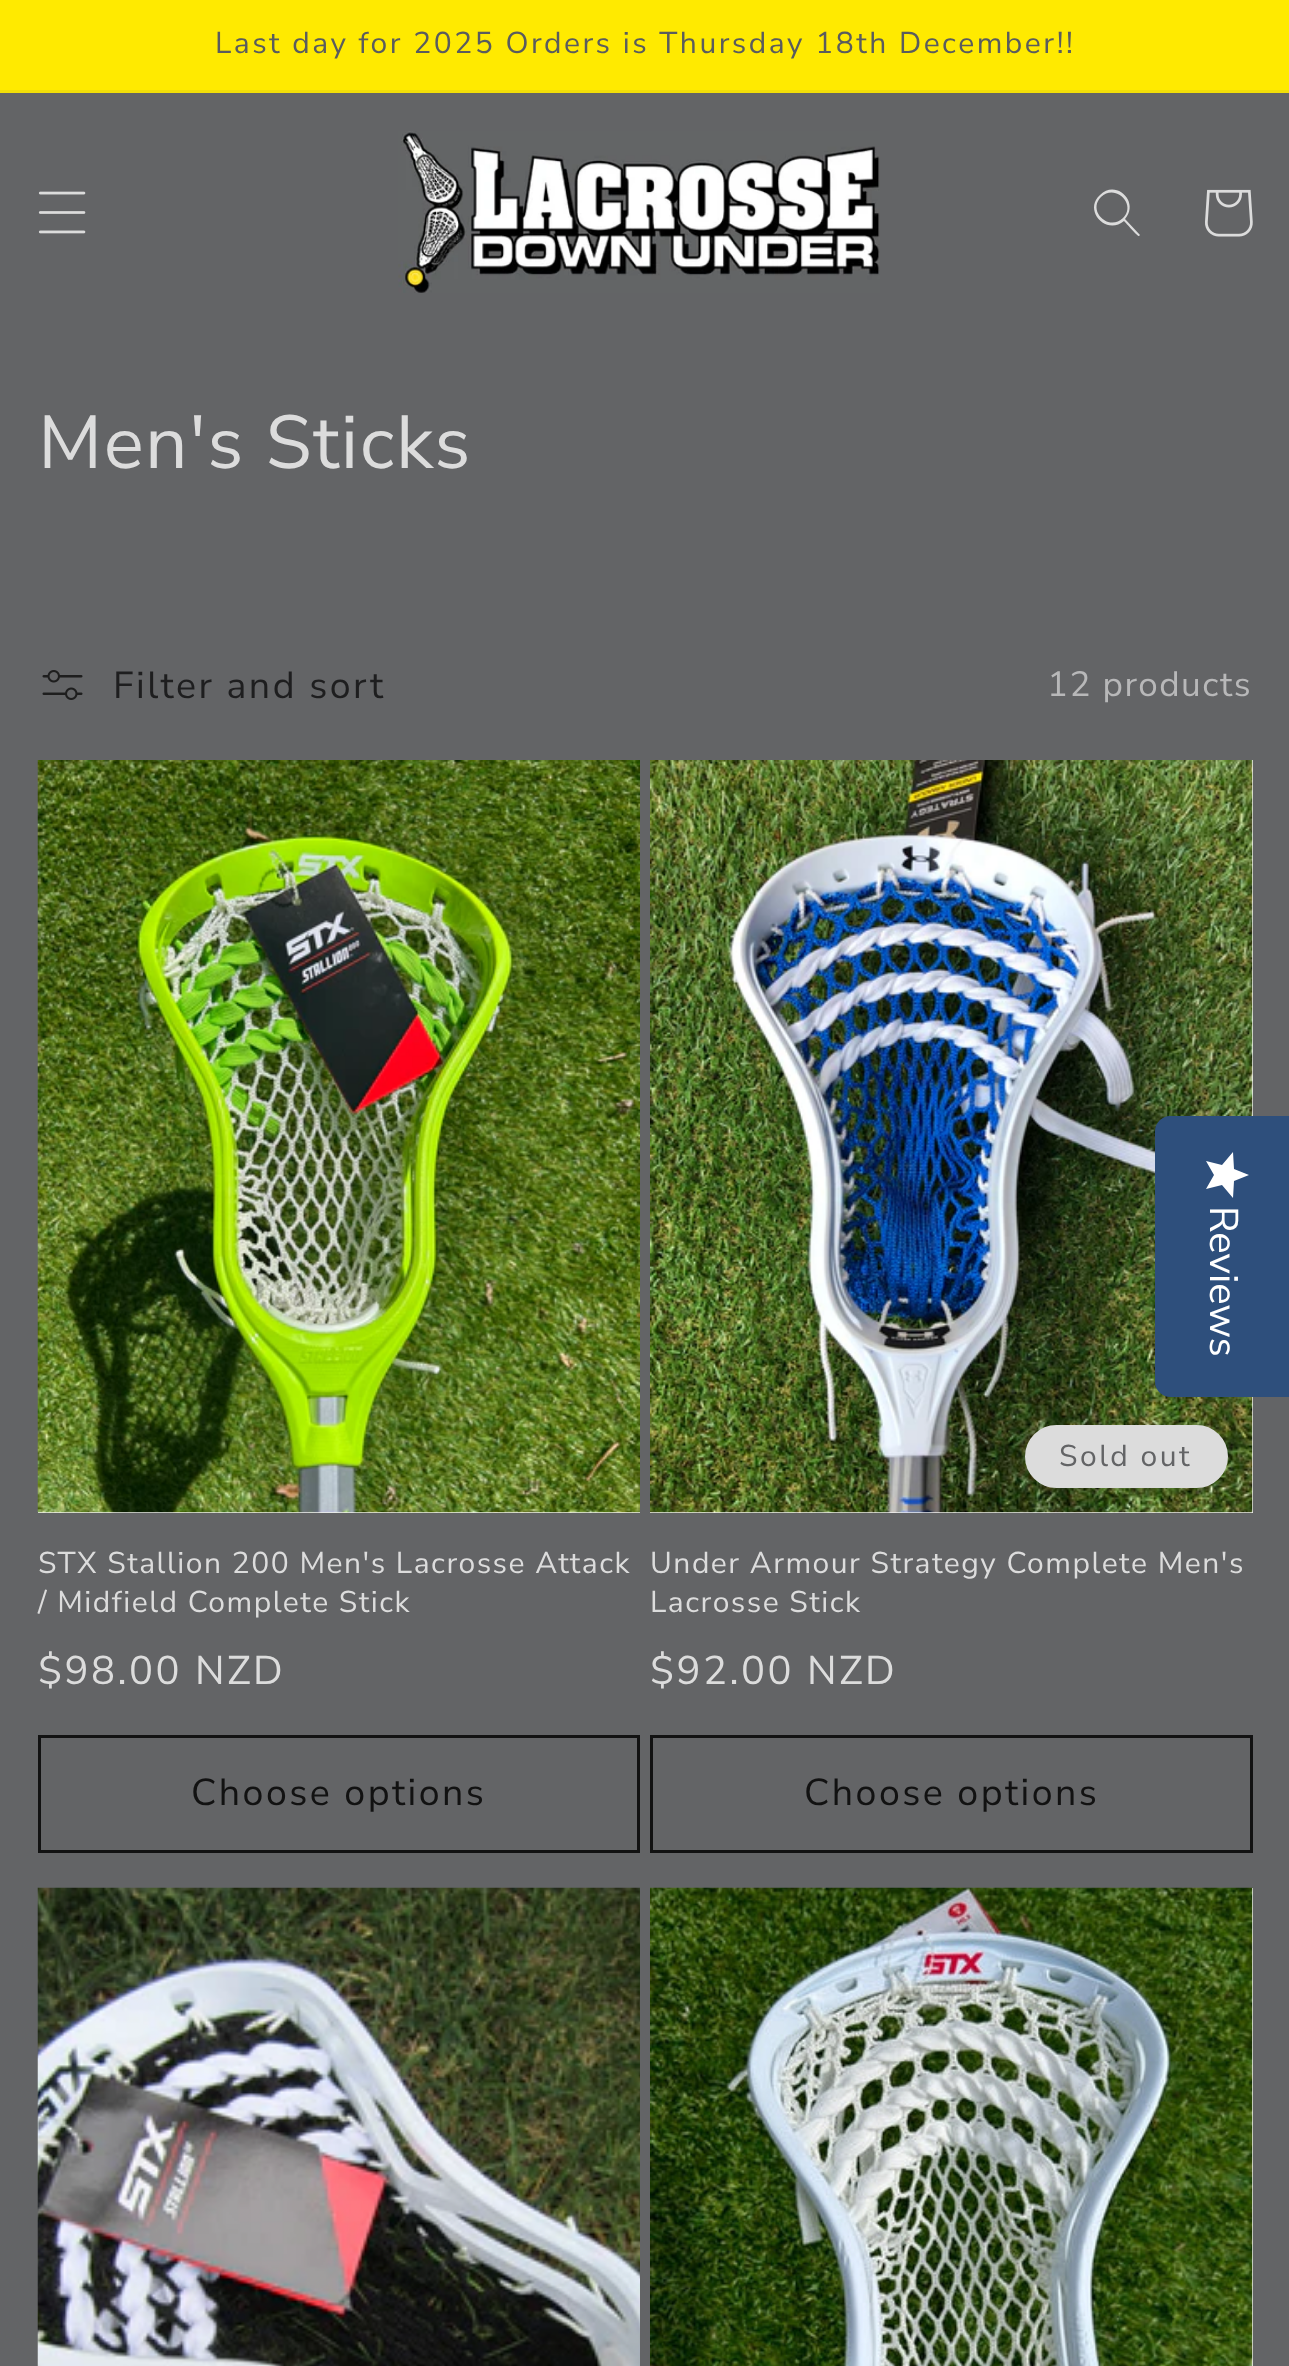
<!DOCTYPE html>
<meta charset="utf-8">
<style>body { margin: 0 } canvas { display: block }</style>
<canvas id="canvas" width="1289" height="2366"></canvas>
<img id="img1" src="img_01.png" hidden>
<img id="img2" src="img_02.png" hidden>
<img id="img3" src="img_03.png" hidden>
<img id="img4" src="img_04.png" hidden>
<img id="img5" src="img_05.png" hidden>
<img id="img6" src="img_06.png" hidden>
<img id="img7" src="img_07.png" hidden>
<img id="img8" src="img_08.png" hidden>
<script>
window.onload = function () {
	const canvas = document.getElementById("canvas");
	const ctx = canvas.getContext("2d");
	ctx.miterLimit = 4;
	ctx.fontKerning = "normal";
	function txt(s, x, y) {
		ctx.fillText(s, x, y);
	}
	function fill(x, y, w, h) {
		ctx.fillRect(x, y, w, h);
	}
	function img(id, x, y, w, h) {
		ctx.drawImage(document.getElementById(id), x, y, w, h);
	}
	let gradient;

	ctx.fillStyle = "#636466";
	fill(0, 0, 1289, 2366);
	ctx.fillStyle = "#FFEA00";
	fill(0, 0, 1289, 90);
	ctx.fillStyle = "#F2DF08";
	fill(0, 90, 1289, 3);
	img("img1", 38, 191, 48, 43);
	img("img2", 398, 131, 482, 162);
	ctx.fillStyle = "#DCDCDC";
	ctx.beginPath();
	ctx.moveTo(1123, 218);
	ctx.bezierCurveTo(1109, 232, 1087, 211, 1101, 197);
	ctx.bezierCurveTo(1115, 183, 1137, 204, 1123, 218);
	ctx.closePath();
	ctx.moveTo(1124, 221);
	ctx.bezierCurveTo(1106, 236, 1083, 210, 1100, 195);
	ctx.bezierCurveTo(1116, 179, 1140, 202, 1125, 219);
	ctx.lineTo(1140, 235);
	ctx.lineTo(1139, 236);
	ctx.bezierCurveTo(1138, 237, 1126, 223, 1124, 221);
	ctx.closePath();
	ctx.fill("evenodd");
	img("img3", 1205, 189, 48, 48);
	img("img4", 42, 670, 41, 30);
	ctx.fillStyle = "#F3F3F3";
	fill(38, 1512, 602, 1);
	img("img5", 37, 760, 603, 753);
	ctx.strokeStyle = "#121212";
	ctx.lineWidth = 3;
	ctx.strokeRect(39.5, 1736.5, 599, 115);
	fill(650, 760, 603, 753);
	img("img6", 650, 760, 603, 753);
	ctx.fillStyle = "#DCDCDC";
	ctx.beginPath();
	ctx.roundRect(1026.5, 1426.5, 200, 60, 30);
	ctx.fill();
	ctx.strokeStyle = "#DCDCDC";
	ctx.stroke();
	ctx.strokeStyle = "#121212";
	ctx.strokeRect(651.5, 1736.5, 600, 115);
	img("img7", 37, 1887, 603, 479);
	ctx.fillStyle = "#F3F3F3";
	fill(1252, 1888, 1, 478);
	img("img8", 650, 1887, 603, 479);
	ctx.fillStyle = "#2E4F7C";
	ctx.beginPath();
	ctx.moveTo(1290, 1116);
	ctx.lineTo(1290, 1397);
	ctx.lineTo(1170, 1397);
	ctx.bezierCurveTo(1162, 1397, 1155, 1390, 1155, 1382);
	ctx.lineTo(1155, 1131);
	ctx.bezierCurveTo(1155, 1123, 1162, 1116, 1170, 1116);
	ctx.closePath();
	ctx.fill();
	gradient = ctx.createLinearGradient(1249, 1153, 1249, 1198);
	gradient.addColorStop(1, "#FFFFFF");
	gradient.addColorStop(1, "#EAEAEA");
	ctx.fillStyle = gradient;
	ctx.beginPath();
	ctx.moveTo(1214, 1175);
	ctx.lineTo(1206, 1161);
	ctx.lineTo(1222, 1165);
	ctx.lineTo(1233, 1152);
	ctx.lineTo(1234, 1169);
	ctx.lineTo(1249, 1175);
	ctx.lineTo(1234, 1181);
	ctx.lineTo(1233, 1198);
	ctx.lineTo(1222, 1185);
	ctx.lineTo(1206, 1189);
	ctx.closePath();
	ctx.fill();
	ctx.letterSpacing = "2.5px";
	ctx.font = "30px Nunito Sans";
	ctx.fillStyle = "#5A5C5E";
	txt("Last day for 2025 Orders is Thursday 18th December!!", 215, 53);
	ctx.letterSpacing = "1.5px";
	ctx.font = "75px Nunito Sans";
	ctx.fillStyle = "#DCDCDC";
	txt("Men's Sticks", 38, 468);
	ctx.letterSpacing = "2.5px";
	ctx.font = "37.5px Nunito Sans";
	ctx.fillStyle = "#1E1E1F";
	txt("Filter and sort", 113, 698);
	ctx.letterSpacing = "1.5px";
	ctx.font = "35px Nunito Sans";
	ctx.fillStyle = "#B8B8B9";
	txt("12 products", 1047, 696);
	ctx.font = "30px Nunito Sans";
	ctx.fillStyle = "#DCDCDC";
	txt("STX Stallion 200 Men's Lacrosse Attack", 38, 1573);
	txt("/ Midfield Complete Stick", 38, 1612);
	ctx.letterSpacing = "2.5px";
	ctx.font = "40px Nunito Sans";
	txt("$98.00 NZD", 38, 1684);
	ctx.font = "37.5px Nunito Sans";
	ctx.fillStyle = "#121212";
	txt("Choose options", 191, 1805);
	ctx.font = "30px Nunito Sans";
	ctx.fillStyle = "#636466";
	txt("Sold out", 1059, 1466);
	ctx.letterSpacing = "1.5px";
	ctx.fillStyle = "#DCDCDC";
	txt("Under Armour Strategy Complete Men's", 650, 1573);
	txt("Lacrosse Stick", 650, 1612);
	ctx.letterSpacing = "2.5px";
	ctx.font = "40px Nunito Sans";
	txt("$92.00 NZD", 650, 1684);
	ctx.font = "37.5px Nunito Sans";
	ctx.fillStyle = "#121212";
	txt("Choose options", 804, 1805);
	ctx.letterSpacing = "0px";
	ctx.font = "40px Nunito Sans";
	ctx.fillStyle = "#FFFFFF";
	ctx.save();
	ctx.translate(1210, 1206);
	ctx.rotate(90 * Math.PI / 180);
	ctx.fillText("Reviews", 0, 0);
	ctx.restore();
};
</script>
